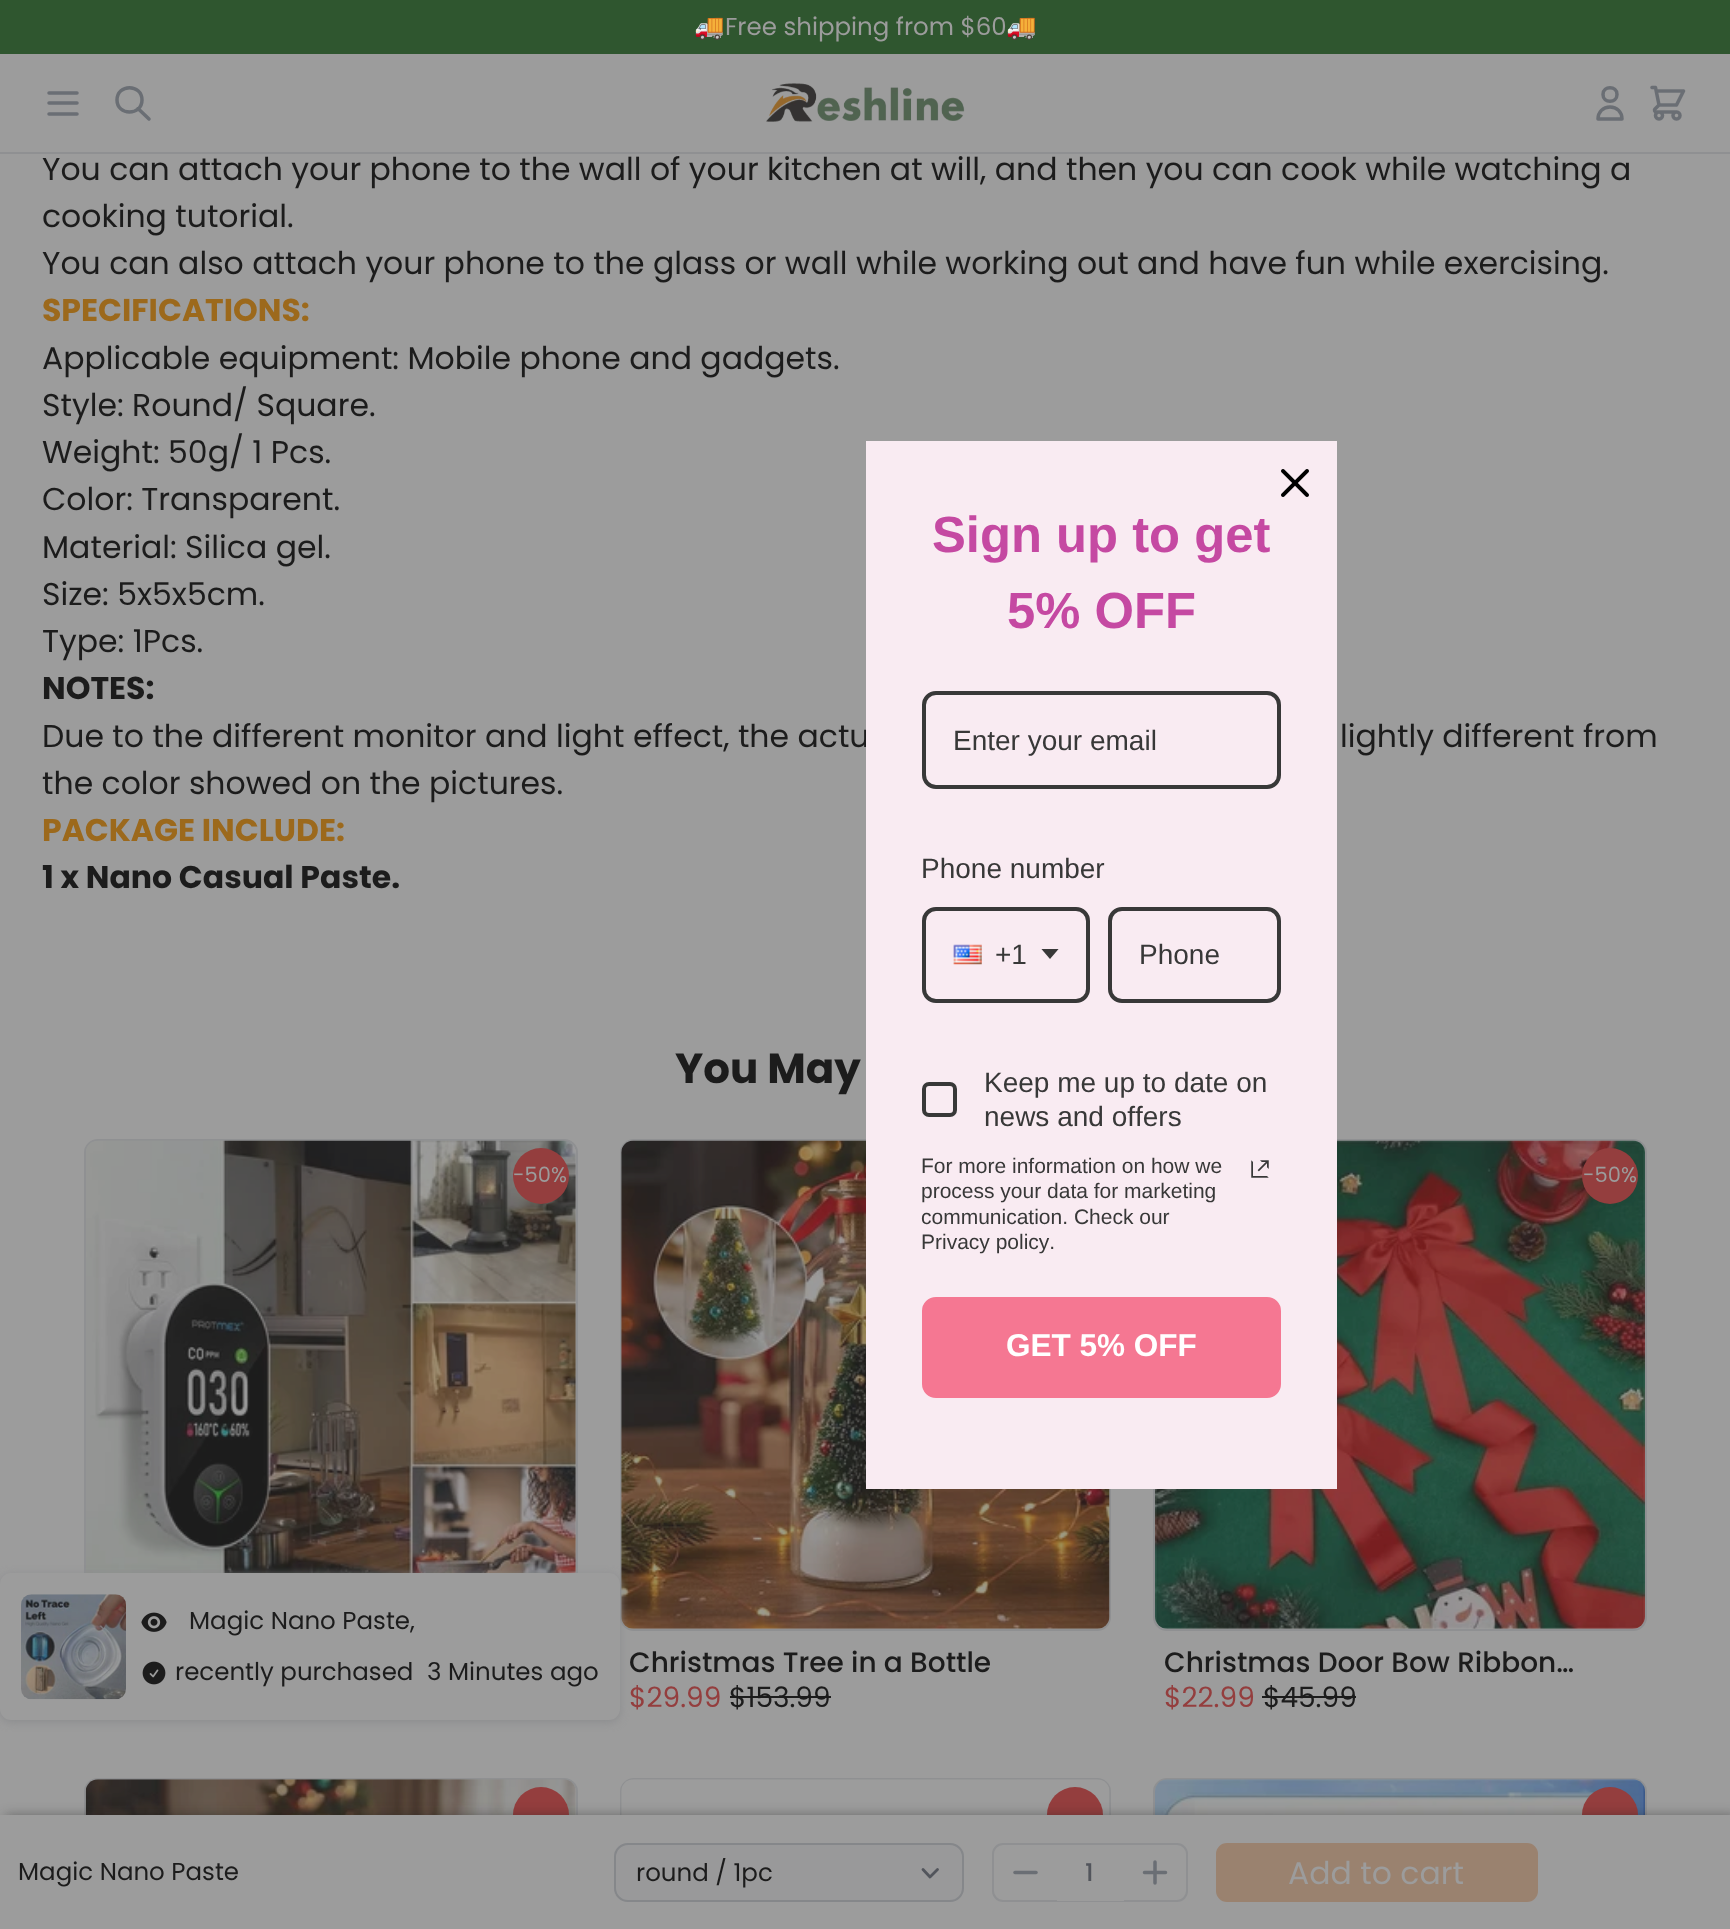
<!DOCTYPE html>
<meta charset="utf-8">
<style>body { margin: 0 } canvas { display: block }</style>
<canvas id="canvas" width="1730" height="1929"></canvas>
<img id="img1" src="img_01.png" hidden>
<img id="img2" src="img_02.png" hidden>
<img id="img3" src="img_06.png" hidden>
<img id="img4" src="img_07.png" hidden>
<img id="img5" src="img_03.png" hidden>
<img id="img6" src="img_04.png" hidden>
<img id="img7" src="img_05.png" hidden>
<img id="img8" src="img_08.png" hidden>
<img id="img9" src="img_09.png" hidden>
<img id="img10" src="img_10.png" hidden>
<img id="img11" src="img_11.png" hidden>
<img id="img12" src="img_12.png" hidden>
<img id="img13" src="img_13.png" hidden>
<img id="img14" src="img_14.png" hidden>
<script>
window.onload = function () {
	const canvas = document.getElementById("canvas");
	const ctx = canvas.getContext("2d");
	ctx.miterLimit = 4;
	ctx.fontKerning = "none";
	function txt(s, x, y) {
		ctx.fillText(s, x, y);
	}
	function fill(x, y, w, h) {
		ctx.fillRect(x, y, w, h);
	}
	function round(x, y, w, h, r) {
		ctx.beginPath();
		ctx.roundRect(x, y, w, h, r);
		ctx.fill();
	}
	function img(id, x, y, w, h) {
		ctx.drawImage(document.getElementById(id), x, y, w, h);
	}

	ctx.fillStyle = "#9C9C9C";
	fill(0, 0, 1730, 1929);
	ctx.fillStyle = "#2F562F";
	fill(0, 0, 1730, 54);
	ctx.fillStyle = "#8F9092";
	fill(0, 152, 1730, 2);
	ctx.beginPath();
	ctx.moveTo(49, 93);
	ctx.lineTo(77, 93);
	ctx.moveTo(49, 103);
	ctx.lineTo(77, 103);
	ctx.moveTo(49, 114);
	ctx.lineTo(77, 114);
	ctx.strokeStyle = "#6A6E74";
	ctx.lineWidth = 3.5;
	ctx.lineCap = "round";
	ctx.lineJoin = "round";
	ctx.stroke();
	ctx.beginPath();
	ctx.moveTo(149, 119);
	ctx.lineTo(138, 108.5);
	ctx.moveTo(142, 100);
	ctx.bezierCurveTo(142, 116, 117, 116, 117, 100);
	ctx.bezierCurveTo(117, 83.5, 142, 83.5, 142, 100);
	ctx.closePath();
	ctx.stroke();
	img("img1", 766, 83, 199, 39);
	ctx.beginPath();
	ctx.moveTo(1617, 94.5);
	ctx.bezierCurveTo(1617, 103.5, 1603, 103.5, 1603, 94.5);
	ctx.bezierCurveTo(1603, 85.5, 1617, 85.5, 1617, 94.5);
	ctx.closePath();
	ctx.moveTo(1610, 107);
	ctx.bezierCurveTo(1603, 107, 1598, 112, 1598, 119);
	ctx.lineTo(1622, 119);
	ctx.bezierCurveTo(1622, 112, 1617, 107, 1610, 107);
	ctx.closePath();
	ctx.stroke();
	img("img2", 1650, 85, 36, 36);
	ctx.beginPath();
	ctx.roundRect(85, 1140, 492, 490, 13);
	ctx.strokeStyle = "#8F9092";
	ctx.lineWidth = 2;
	ctx.lineJoin = "miter";
	ctx.stroke();
	img("img3", 86, 1140, 490, 433);
	ctx.beginPath();
	ctx.roundRect(621, 1140, 489, 490, 13);
	ctx.stroke();
	img("img4", 621, 1140, 489, 489);
	ctx.fillStyle = "#8B8C8E";
	ctx.filter = "blur(4.5px)";
	ctx.beginPath();
	ctx.roundRect(0, 1575, 620, 147, 11);
	ctx.fill();
	ctx.filter = "none";
	ctx.fillStyle = "#9C9C9C";
	round(0, 1573, 620, 147, 11);
	img("img5", 21, 1594, 105, 106);
	img("img6", 141, 1612, 26, 20);
	img("img7", 142, 1661, 24, 24);
	ctx.fillStyle = "#943E3E";
	ctx.beginPath();
	ctx.arc(541, 1176, 28, 0, Math.PI * 2);
	ctx.fill();
	ctx.fillStyle = "#1C1C1C";
	fill(730, 1696, 101, 2);
	ctx.beginPath();
	ctx.roundRect(1154, 1140, 492, 490, 13);
	ctx.stroke();
	img("img8", 1155, 1140, 490, 489);
	ctx.fillStyle = "#943E3E";
	ctx.beginPath();
	ctx.arc(1610, 1176, 28, 0, Math.PI * 2);
	ctx.fill();
	ctx.fillStyle = "#1C1C1C";
	fill(1262, 1696, 94, 2);
	ctx.beginPath();
	ctx.roundRect(85, 1779, 492, 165, 13);
	ctx.stroke();
	img("img9", 85, 1779, 491, 36);
	ctx.fillStyle = "#943E3E";
	ctx.beginPath();
	ctx.arc(541, 1815, 28, 0, Math.PI * 2);
	ctx.fill();
	ctx.beginPath();
	ctx.roundRect(621, 1779, 489, 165, 13);
	ctx.stroke();
	img("img10", 621, 1779, 489, 36);
	ctx.beginPath();
	ctx.arc(1075, 1815, 28, 0, Math.PI * 2);
	ctx.fill();
	ctx.beginPath();
	ctx.roundRect(1154, 1779, 492, 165, 13);
	ctx.stroke();
	img("img11", 1155, 1779, 490, 36);
	ctx.beginPath();
	ctx.arc(1610, 1815, 28, 0, Math.PI * 2);
	ctx.fill();
	ctx.fillStyle = "rgba(28, 28, 28, 0.4)";
	ctx.filter = "blur(6px)";
	ctx.beginPath();
	ctx.rect(5, 1815, 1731, 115);
	ctx.fill();
	ctx.filter = "none";
	ctx.fillStyle = "#9C9C9C";
	fill(0, 1815, 1730, 114);
	ctx.fillStyle = "#99999A";
	round(614, 1843, 350, 59, 14);
	ctx.beginPath();
	ctx.moveTo(923, 1869.5);
	ctx.lineTo(930, 1877);
	ctx.lineTo(937.5, 1869.5);
	ctx.strokeStyle = "#52555C";
	ctx.lineWidth = 2.8;
	ctx.lineJoin = "round";
	ctx.stroke();
	ctx.beginPath();
	ctx.roundRect(615, 1844, 348, 57, 13);
	ctx.strokeStyle = "#85878A";
	ctx.lineWidth = 2;
	ctx.lineJoin = "miter";
	ctx.stroke();
	ctx.beginPath();
	ctx.roundRect(993, 1844, 194, 57, 10);
	ctx.strokeStyle = "#8F9092";
	ctx.stroke();
	ctx.beginPath();
	ctx.moveTo(1036, 1872.5);
	ctx.lineTo(1015, 1872.5);
	ctx.strokeStyle = "#6A6E74";
	ctx.lineWidth = 3.5;
	ctx.lineJoin = "round";
	ctx.stroke();
	ctx.fillStyle = "#9C9C9C";
	fill(1057, 1900, 67, 1);
	ctx.beginPath();
	ctx.moveTo(1155, 1862);
	ctx.lineTo(1155, 1872.5);
	ctx.moveTo(1155, 1872.5);
	ctx.lineTo(1155, 1883);
	ctx.moveTo(1155, 1872.5);
	ctx.lineTo(1165.5, 1872.5);
	ctx.moveTo(1155, 1872.5);
	ctx.lineTo(1144.5, 1872.5);
	ctx.stroke();
	ctx.fillStyle = "#996842";
	ctx.beginPath();
	ctx.roundRect(1217, 1844, 320, 57, 10);
	ctx.fill();
	ctx.strokeStyle = "#996842";
	ctx.lineWidth = 2;
	ctx.lineJoin = "miter";
	ctx.stroke();
	ctx.font = "24.5px Noto Color Emoji";
	ctx.fillStyle = "#9C9C9C";
	txt("🚚", 694, 35);
	ctx.font = "24.5px Poppins";
	txt("Free shipping from $60", 725, 35);
	ctx.font = "24.5px Noto Color Emoji";
	txt("🚚", 1006, 35);
	ctx.font = "31.5px Poppins";
	ctx.fillStyle = "#1C1C1C";
	txt("You can attach your phone to the wall of your kitchen at will, and then you can cook while watching a", 42, 180);
	txt("cooking tutorial.", 42, 227);
	txt("You can also attach your phone to the glass or wall while working out and have fun while exercising.", 42, 274);
	ctx.font = "bold 31.5px Poppins";
	ctx.fillStyle = "#9C691C";
	txt("SPECIFICATIONS:", 42, 321);
	ctx.font = "31.5px Poppins";
	ctx.fillStyle = "#1C1C1C";
	txt("Applicable equipment: Mobile phone and gadgets.", 42, 369);
	txt("Style: Round/ Square.", 42, 416);
	txt("Weight: 50g/ 1 Pcs.", 42, 463);
	txt("Color: Transparent.", 42, 510);
	txt("Material: Silica gel.", 42, 558);
	txt("Size: 5x5x5cm.", 42, 605);
	txt("Type: 1Pcs.", 42, 652);
	ctx.font = "bold 31.5px Poppins";
	txt("NOTES:", 42, 699);
	ctx.font = "31.5px Poppins";
	txt("Due to the different monitor and light effect, the actu", 42, 747);
	txt("lightly different from", 1340, 747);
	txt("the color showed on the pictures.", 42, 794);
	ctx.font = "bold 31.5px Poppins";
	ctx.fillStyle = "#9C691C";
	txt("PACKAGE INCLUDE:", 42, 841);
	ctx.fillStyle = "#1C1C1C";
	txt("1 x Nano Casual Paste.", 42, 888);
	ctx.font = "24.5px Poppins";
	txt("Magic Nano Paste,", 189, 1629);
	txt("recently purchased", 175, 1680);
	txt("3 Minutes ago", 427, 1680);
	ctx.font = "bold 42px Poppins";
	txt("You May", 675, 1083);
	ctx.font = "21px Poppins";
	ctx.fillStyle = "#9C9C9C";
	txt("-50%", 513, 1182);
	ctx.font = "500 28px Poppins";
	ctx.fillStyle = "#1C1C1C";
	txt("Christmas Tree in a Bottle", 629, 1672);
	ctx.font = "28px Poppins";
	ctx.fillStyle = "#943E3E";
	txt("$29.99", 629, 1707);
	ctx.fillStyle = "#1C1C1C";
	txt("$153.99", 729, 1707);
	ctx.font = "21px Poppins";
	ctx.fillStyle = "#9C9C9C";
	txt("-50%", 1583, 1182);
	ctx.font = "500 28px Poppins";
	ctx.fillStyle = "#1C1C1C";
	txt("Christmas Door Bow Ribbon…", 1164, 1672);
	ctx.font = "28px Poppins";
	ctx.fillStyle = "#943E3E";
	txt("$22.99", 1164, 1707);
	ctx.fillStyle = "#1C1C1C";
	txt("$45.99", 1263, 1707);
	ctx.font = "24.5px Poppins";
	txt("Magic Nano Paste", 18, 1880);
	txt("round / 1pc", 636, 1881);
	ctx.font = "500 24.5px Poppins";
	ctx.fillStyle = "#52555C";
	txt("1", 1085, 1881);
	ctx.font = "31.5px Poppins";
	ctx.fillStyle = "#9C9C9C";
	txt("Add to cart", 1288, 1884);
	ctx.fillStyle = "rgba(156, 156, 156, 0.5)";
	fill(1216, 1843, 322, 59);
	ctx.fillStyle = "#F9EBF2";
	fill(866, 441, 471, 1048);
	img("img12", 1281, 469, 28, 28);
	ctx.font = "bold 50.75px Liberation Sans";
	ctx.fillStyle = "#C549A2";
	txt("Sign up to get", 932, 552);
	txt("5% OFF", 1007, 628);
	ctx.beginPath();
	ctx.roundRect(924, 693, 355, 94, 12);
	ctx.strokeStyle = "#383838";
	ctx.lineWidth = 4;
	ctx.stroke();
	ctx.font = "28px Liberation Sans";
	ctx.fillStyle = "#383838";
	txt("Enter your email", 953, 750);
	txt("Phone number", 921, 878);
	ctx.beginPath();
	ctx.roundRect(924, 909, 164, 92, 12);
	ctx.stroke();
	img("img13", 953, 944, 29, 21);
	txt("+1", 995, 964);
	ctx.save();
	ctx.beginPath();
	ctx.rect(1041, 949, 18, 10);
	ctx.clip();
	ctx.beginPath();
	ctx.moveTo(1041, 948.5);
	ctx.lineTo(1059, 948.5);
	ctx.lineTo(1050, 959);
	ctx.closePath();
	ctx.fill("evenodd");
	ctx.restore();
	ctx.beginPath();
	ctx.roundRect(1110, 909, 169, 92, 12);
	ctx.stroke();
	txt("Phone", 1139, 964);
	ctx.beginPath();
	ctx.roundRect(924, 1084, 31, 31, 5);
	ctx.stroke();
	txt("Keep me up to date on", 984, 1092);
	txt("news and offers", 984, 1126);
	ctx.font = "21px Liberation Sans";
	txt("For more information on how we", 921, 1173);
	txt("process your data for marketing", 921, 1198);
	txt("communication. Check our", 921, 1224);
	txt("Privacy policy.", 921, 1249);
	img("img14", 1251, 1160, 18, 18);
	ctx.fillStyle = "#F57792";
	ctx.beginPath();
	ctx.roundRect(924, 1299, 355, 97, 12);
	ctx.fill();
	ctx.strokeStyle = "#F57792";
	ctx.stroke();
	ctx.font = "bold 31.5px Liberation Sans";
	ctx.fillStyle = "#FFFFFF";
	txt("GET 5% OFF", 1006, 1356);
};
</script>
